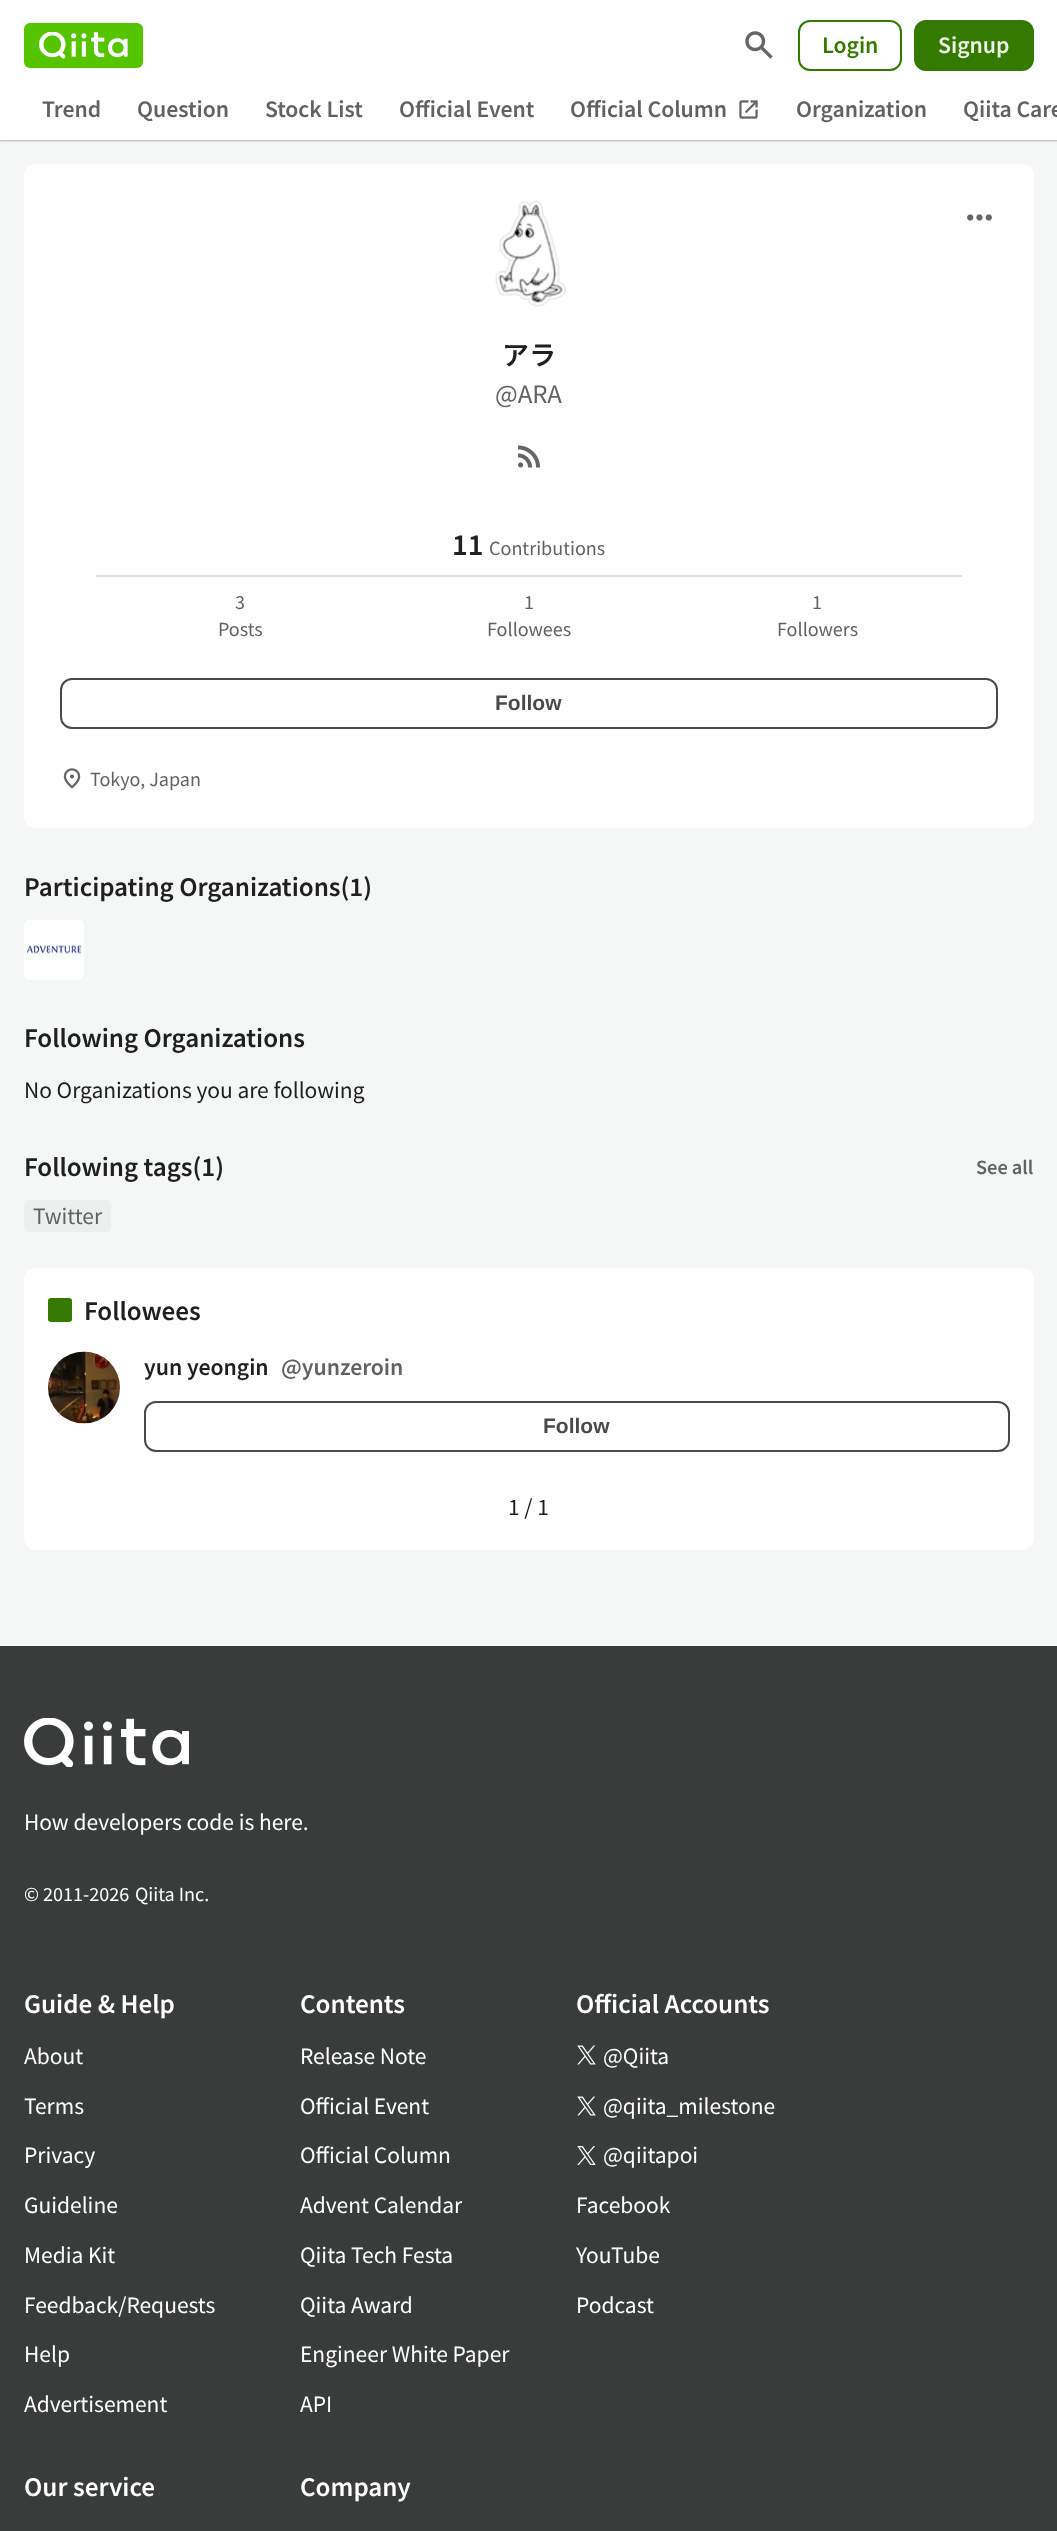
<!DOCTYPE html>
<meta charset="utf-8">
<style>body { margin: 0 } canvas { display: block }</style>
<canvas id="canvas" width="1057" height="2531"></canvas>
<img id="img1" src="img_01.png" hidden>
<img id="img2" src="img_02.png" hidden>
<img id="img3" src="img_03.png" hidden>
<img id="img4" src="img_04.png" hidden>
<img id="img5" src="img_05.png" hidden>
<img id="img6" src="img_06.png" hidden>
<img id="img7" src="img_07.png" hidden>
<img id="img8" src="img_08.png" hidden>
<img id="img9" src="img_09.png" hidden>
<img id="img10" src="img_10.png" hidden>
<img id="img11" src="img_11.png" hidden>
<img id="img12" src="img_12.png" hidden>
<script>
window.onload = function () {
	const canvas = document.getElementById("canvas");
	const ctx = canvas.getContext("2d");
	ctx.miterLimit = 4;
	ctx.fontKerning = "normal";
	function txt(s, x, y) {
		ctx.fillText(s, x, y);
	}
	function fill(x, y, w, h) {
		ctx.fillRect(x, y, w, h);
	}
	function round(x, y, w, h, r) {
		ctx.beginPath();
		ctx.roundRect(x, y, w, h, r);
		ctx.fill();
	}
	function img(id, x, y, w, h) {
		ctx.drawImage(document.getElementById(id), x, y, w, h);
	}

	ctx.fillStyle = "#F5F6F6";
	fill(0, 0, 1057, 2531);
	ctx.strokeStyle = "#E1E2E2";
	ctx.lineWidth = 2;
	ctx.strokeRect(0, 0, 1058, 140);
	ctx.fillStyle = "rgba(30, 33, 33, 0.25)";
	ctx.filter = "blur(1px)";
	ctx.beginPath();
	ctx.rect(0, 2, 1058, 139);
	ctx.fill();
	ctx.filter = "none";
	ctx.fillStyle = "#FFFFFF";
	fill(0, 0, 1057, 140);
	ctx.fillStyle = "#55C500";
	round(24, 23, 119, 45, 6);
	img("img1", 39, 32, 89, 27);
	img("img2", 745, 31, 28, 28);
	ctx.beginPath();
	ctx.roundRect(799, 21, 102, 49, 11);
	ctx.strokeStyle = "#357A00";
	ctx.stroke();
	ctx.fillStyle = "#357A00";
	round(914, 20, 120, 51, 12);
	img("img3", 739, 100, 19, 19);
	ctx.fillStyle = "#FFFFFF";
	round(24, 164, 1010, 664, 12);
	img("img4", 967, 214, 25, 7);
	img("img5", 495, 200, 72, 107);
	img("img6", 518, 445, 22, 23);
	ctx.fillStyle = "#E0E0E0";
	fill(96, 575, 866, 2);
	ctx.beginPath();
	ctx.roundRect(61, 679, 936, 49, 11);
	ctx.strokeStyle = "#494B4B";
	ctx.stroke();
	img("img7", 63, 768, 18, 21);
	ctx.fillStyle = "#FFFFFF";
	round(24, 920, 60, 60, 6);
	img("img8", 24, 920, 59, 40);
	ctx.fillStyle = "#EDEEEE";
	round(24, 1200, 87, 32, 6);
	ctx.fillStyle = "#FFFFFF";
	round(24, 1268, 1010, 282, 12);
	ctx.fillStyle = "#357A00";
	round(48, 1298, 24, 24, 3);
	img("img9", 48, 1351, 72, 73);
	ctx.beginPath();
	ctx.roundRect(145, 1402, 864, 49, 11);
	ctx.stroke();
	ctx.fillStyle = "#3A3C3C";
	fill(0, 1646, 1057, 885);
	img("img10", 24, 1718, 165, 49);
	img("img11", 577, 2045, 19, 20);
	img("img11", 577, 2096, 19, 20);
	img("img12", 577, 2146, 19, 19);
	ctx.font = "600 21px Noto Sans JP";
	ctx.fillStyle = "#357A00";
	txt("Login", 822, 53);
	ctx.fillStyle = "#EFF4EB";
	txt("Signup", 938, 53);
	ctx.fillStyle = "#626262";
	txt("Trend", 42, 117);
	txt("Question", 137, 117);
	txt("Stock List", 265, 117);
	txt("Official Event", 399, 117);
	txt("Official Column", 570, 117);
	txt("Organization", 796, 117);
	txt("Qiita Care", 963, 117);
	ctx.font = "600 27px Noto Sans JP";
	ctx.fillStyle = "#202020";
	txt("アラ", 502, 365);
	ctx.font = "24px Noto Sans JP";
	ctx.fillStyle = "#626262";
	txt("@ARA", 495, 403);
	ctx.font = "600 27px Noto Sans JP";
	ctx.fillStyle = "#202020";
	txt("11", 452, 555);
	ctx.font = "18px Noto Sans JP";
	ctx.fillStyle = "#626262";
	txt("Contributions", 489, 555);
	txt("3", 235, 609);
	txt("Posts", 218, 636);
	txt("1", 524, 609);
	txt("Followees", 487, 636);
	txt("1", 812, 609);
	txt("Followers", 777, 636);
	ctx.font = "bold 21px Liberation Sans";
	ctx.fillStyle = "#494B4B";
	txt("Follow", 495, 710);
	ctx.font = "18px Noto Sans JP";
	ctx.fillStyle = "#626262";
	txt("Tokyo, Japan", 90, 786);
	ctx.font = "600 24px Noto Sans JP";
	ctx.fillStyle = "#202020";
	txt("Participating Organizations(1)", 24, 896);
	txt("Following Organizations", 24, 1047);
	ctx.font = "21px Noto Sans JP";
	txt("No Organizations you are following", 24, 1098);
	ctx.font = "600 24px Noto Sans JP";
	txt("Following tags(1)", 24, 1176);
	ctx.font = "600 18px Noto Sans JP";
	ctx.fillStyle = "#626262";
	txt("See all", 976, 1174);
	ctx.font = "21px Noto Sans JP";
	txt("Twitter", 33, 1224);
	ctx.font = "600 24px Noto Sans JP";
	ctx.fillStyle = "#202020";
	txt("Followees", 84, 1320);
	ctx.font = "600 21px Noto Sans JP";
	txt("yun yeongin", 144, 1375);
	ctx.fillStyle = "#626262";
	txt("@yunzeroin", 281, 1375);
	ctx.font = "bold 21px Liberation Sans";
	ctx.fillStyle = "#494B4B";
	txt("Follow", 543, 1433);
	ctx.font = "21px Noto Sans JP";
	ctx.fillStyle = "#202020";
	txt("1 / 1", 508, 1515);
	ctx.fillStyle = "#FFFFFF";
	txt("How developers code is here.", 24, 1830);
	ctx.font = "18px Noto Sans JP";
	txt("© 2011-2026", 24, 1901);
	txt("Qiita Inc.", 135, 1901);
	ctx.font = "600 24px Noto Sans JP";
	txt("Guide & Help", 24, 2013);
	ctx.font = "21px Noto Sans JP";
	txt("About", 24, 2064);
	txt("Terms", 24, 2114);
	txt("Privacy", 24, 2163);
	txt("Guideline", 24, 2213);
	txt("Media Kit", 24, 2263);
	txt("Feedback/Requests", 24, 2313);
	txt("Help", 24, 2362);
	txt("Advertisement", 24, 2412);
	ctx.font = "600 24px Noto Sans JP";
	txt("Contents", 300, 2013);
	ctx.font = "21px Noto Sans JP";
	txt("Release Note", 300, 2064);
	txt("Official Event", 300, 2114);
	txt("Official Column", 300, 2163);
	txt("Advent Calendar", 300, 2213);
	txt("Qiita Tech Festa", 300, 2263);
	txt("Qiita Award", 300, 2313);
	txt("Engineer White Paper", 300, 2362);
	txt("API", 300, 2412);
	ctx.font = "600 24px Noto Sans JP";
	txt("Official Accounts", 576, 2013);
	ctx.font = "21px Noto Sans JP";
	txt("@Qiita", 603, 2064);
	txt("@qiita_milestone", 603, 2114);
	txt("@qiitapoi", 603, 2163);
	txt("Facebook", 576, 2213);
	txt("YouTube", 576, 2263);
	txt("Podcast", 576, 2313);
	ctx.font = "600 24px Noto Sans JP";
	txt("Our service", 24, 2496);
	txt("Company", 300, 2496);
};
</script>
